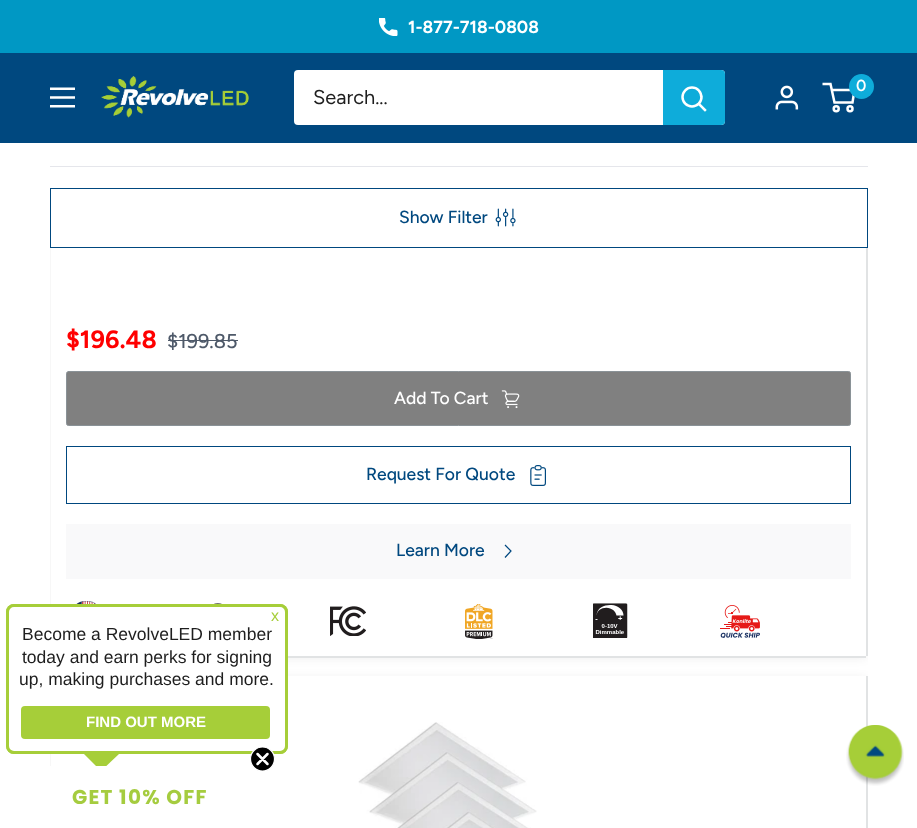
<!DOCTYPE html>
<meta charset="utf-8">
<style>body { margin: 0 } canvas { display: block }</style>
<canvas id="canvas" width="917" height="828"></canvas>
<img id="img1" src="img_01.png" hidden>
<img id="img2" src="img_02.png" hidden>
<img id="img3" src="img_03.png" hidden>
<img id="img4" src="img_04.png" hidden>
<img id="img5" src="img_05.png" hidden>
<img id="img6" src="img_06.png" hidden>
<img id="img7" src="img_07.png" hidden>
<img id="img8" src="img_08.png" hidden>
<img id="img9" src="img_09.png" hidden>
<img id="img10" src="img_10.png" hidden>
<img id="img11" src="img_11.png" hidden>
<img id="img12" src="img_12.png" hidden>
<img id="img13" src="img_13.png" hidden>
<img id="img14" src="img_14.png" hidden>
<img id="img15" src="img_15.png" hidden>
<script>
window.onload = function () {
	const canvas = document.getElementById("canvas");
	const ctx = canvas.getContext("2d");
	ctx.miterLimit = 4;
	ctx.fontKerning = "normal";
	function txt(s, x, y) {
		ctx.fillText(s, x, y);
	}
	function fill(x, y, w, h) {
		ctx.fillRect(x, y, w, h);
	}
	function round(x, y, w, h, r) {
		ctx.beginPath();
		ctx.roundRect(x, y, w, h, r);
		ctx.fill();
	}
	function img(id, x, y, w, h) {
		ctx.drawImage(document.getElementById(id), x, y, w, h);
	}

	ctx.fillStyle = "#FFFFFF";
	fill(0, 0, 917, 828);
	ctx.save();
	ctx.beginPath();
	ctx.roundRect(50, -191, 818, 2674, 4);
	ctx.clip();
	ctx.fillStyle = "rgba(20, 20, 20, 0.08)";
	ctx.filter = "blur(5px)";
	ctx.beginPath();
	ctx.rect(51, -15, 815, 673);
	ctx.fill();
	ctx.filter = "none";
	ctx.restore();
	ctx.fillStyle = "#0098C4";
	fill(0, 0, 917, 53);
	img("img1", 379, 18, 19, 18);
	ctx.fillStyle = "#00487F";
	fill(0, 53, 917, 90);
	img("img2", 101, 76, 148, 42);
	img("img3", 775, 85, 24, 25);
	ctx.beginPath();
	ctx.arc(836.2, 108.8, 2.5, 0, Math.PI * 2);
	ctx.strokeStyle = "#FFFFFF";
	ctx.lineWidth = 2.5;
	ctx.stroke();
	ctx.beginPath();
	ctx.arc(850, 108.8, 2.5, 0, Math.PI * 2);
	ctx.stroke();
	ctx.beginPath();
	ctx.moveTo(831.5, 90);
	ctx.lineTo(854.5, 90);
	ctx.lineTo(852.5, 102.5);
	ctx.lineTo(834.5, 102.5);
	ctx.lineTo(830.5, 84);
	ctx.lineTo(822.5, 84);
	ctx.stroke();
	ctx.fillStyle = "#0EACDA";
	ctx.beginPath();
	ctx.arc(861.5, 86.5, 12.5, 0, Math.PI * 2);
	ctx.fill();
	img("img4", 50, 87, 25, 21);
	ctx.fillStyle = "#FFFFFF";
	round(294, 70, 431, 55, 4);
	ctx.fillStyle = "#0EACDA";
	ctx.beginPath();
	ctx.roundRect(663, 70, 62, 55, [0, 4, 4, 0]);
	ctx.fill();
	ctx.beginPath();
	ctx.moveTo(705, 110);
	ctx.lineTo(699, 104);
	ctx.lineCap = "square";
	ctx.stroke();
	ctx.beginPath();
	ctx.arc(692, 97, 9.5, 0, Math.PI * 2);
	ctx.stroke();
	ctx.fillStyle = "#FFFFFF";
	fill(50, 143, 818, 104);
	ctx.fillStyle = "#E5E6EB";
	fill(50, 166, 818, 1);
	ctx.strokeStyle = "#00487F";
	ctx.lineWidth = 1;
	ctx.strokeRect(50.5, 188.5, 817, 59);
	img("img5", 495, 208, 21, 19);
	ctx.fillStyle = "#E1E3E4";
	ctx.beginPath();
	ctx.moveTo(51, -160);
	ctx.lineTo(51, 658);
	ctx.lineTo(866, 658);
	ctx.lineTo(866, 656);
	ctx.lineTo(51, 656);
	ctx.closePath();
	ctx.fill();
	fill(866, 248, 2, 408);
	ctx.fillStyle = "#FFFFFF";
	fill(51, 248, 815, 408);
	ctx.fillStyle = "#4E5969";
	fill(168, 340, 70, 1);
	ctx.fillStyle = "#808080";
	ctx.beginPath();
	ctx.roundRect(66.5, 371.5, 784, 54, 2);
	ctx.fill();
	ctx.strokeStyle = "#8A9297";
	ctx.stroke();
	img("img6", 501, 390, 19, 19);
	ctx.strokeStyle = "#00487F";
	ctx.strokeRect(66.5, 446.5, 784, 57);
	img("img7", 530, 465, 16, 21);
	ctx.fillStyle = "#F9F9FA";
	fill(66, 524, 785, 55);
	ctx.beginPath();
	ctx.moveTo(505, 545);
	ctx.lineTo(511, 551);
	ctx.lineTo(505, 557.5);
	ctx.lineWidth = 1.2;
	ctx.lineCap = "butt";
	ctx.stroke();
	img("img8", 76, 601, 20, 3);
	img("img9", 214, 603, 8, 1);
	img("img10", 330, 606, 36, 30);
	img("img11", 465, 604, 28, 35);
	img("img12", 593, 603, 35, 35);
	img("img13", 720, 605, 40, 33);
	ctx.save();
	ctx.beginPath();
	ctx.roundRect(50, -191, 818, 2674, 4);
	ctx.clip();
	ctx.fillStyle = "rgba(20, 20, 20, 0.08)";
	ctx.filter = "blur(5px)";
	ctx.beginPath();
	ctx.rect(51, 678, 815, 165);
	ctx.fill();
	ctx.filter = "none";
	ctx.restore();
	ctx.fillStyle = "#FFFFFF";
	fill(51, 676, 815, 152);
	img("img14", 358, 722, 179, 106);
	ctx.fillStyle = "#E1E3E4";
	ctx.beginPath();
	ctx.moveTo(53, 676);
	ctx.lineTo(868, 676);
	ctx.lineTo(868, 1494);
	ctx.lineTo(53, 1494);
	ctx.lineTo(866, 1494);
	ctx.lineTo(866, 676);
	ctx.closePath();
	ctx.fill();
	ctx.fillStyle = "#A6CE39";
	ctx.filter = "blur(0.5px)";
	ctx.beginPath();
	ctx.roundRect(6, 604, 282, 150, 8);
	ctx.fill();
	ctx.filter = "none";
	ctx.fillStyle = "#FFFFFF";
	ctx.beginPath();
	ctx.roundRect(7.5, 605.5, 279, 147, 6.5);
	ctx.fill();
	ctx.strokeStyle = "#A6CE39";
	ctx.lineWidth = 3;
	ctx.stroke();
	ctx.fillStyle = "#A6CE39";
	round(21, 706, 249, 33, 4);
	ctx.beginPath();
	ctx.moveTo(84, 754);
	ctx.lineTo(119, 754);
	ctx.lineTo(101, 771);
	ctx.closePath();
	ctx.fill();
	img("img15", 846, 725, 58, 61);
	ctx.fillStyle = "#FFFFFF";
	ctx.beginPath();
	ctx.moveTo(30, 766);
	ctx.lineTo(250, 766);
	ctx.bezierCurveTo(253, 766, 255, 768, 255, 771);
	ctx.lineTo(255, 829);
	ctx.lineTo(25, 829);
	ctx.lineTo(25, 771);
	ctx.bezierCurveTo(25, 768, 27, 766, 30, 766);
	ctx.closePath();
	ctx.fill();
	ctx.fillStyle = "#000000";
	ctx.beginPath();
	ctx.arc(262.5, 759, 12, 0, Math.PI * 2);
	ctx.fill();
	ctx.strokeStyle = "#FFFFFF";
	ctx.lineWidth = 1.2;
	ctx.stroke();
	ctx.beginPath();
	ctx.moveTo(257.5, 754);
	ctx.lineTo(267.5, 764);
	ctx.moveTo(257.5, 764);
	ctx.lineTo(267.5, 754);
	ctx.closePath();
	ctx.lineWidth = 2.5;
	ctx.lineCap = "round";
	ctx.lineJoin = "round";
	ctx.stroke();
	ctx.font = "bold 17.5px Figtree";
	ctx.fillStyle = "#FFFFFF";
	txt("1-877-718-0808", 408, 33);
	ctx.font = "600 16px Figtree";
	txt("0", 856, 91);
	ctx.font = "20px Figtree";
	ctx.fillStyle = "#1E1E1E";
	txt("Search...", 313, 104);
	ctx.font = "500 17.5px Figtree";
	ctx.fillStyle = "#00487F";
	txt("Show Filter", 399, 223);
	ctx.font = "bold 25px Figtree";
	ctx.fillStyle = "#FF0000";
	txt("$196.48", 66, 348);
	ctx.font = "500 20px Figtree";
	ctx.fillStyle = "#4E5969";
	txt("$199.85", 167, 348);
	ctx.font = "500 17.5px Figtree";
	ctx.fillStyle = "#FFFFFF";
	txt("Add To Cart", 394, 404);
	ctx.fillStyle = "#00487F";
	txt("Request For Quote", 366, 480);
	txt("Learn More", 396, 556);
	ctx.font = "16px Liberation Sans";
	ctx.fillStyle = "#A6CE39";
	txt("x", 271, 621);
	ctx.font = "17.5px Liberation Sans";
	ctx.fillStyle = "#1E1E1E";
	txt("Become a RevolveLED member", 22, 640);
	txt("today and earn perks for signing", 22, 663);
	txt("up, making purchases and more.", 19, 685);
	ctx.font = "bold 15px Liberation Sans";
	ctx.fillStyle = "#FFFFFF";
	txt("FIND OUT MORE", 86, 727);
	ctx.letterSpacing = "1.25px";
	ctx.font = "bold 20px Poppins";
	ctx.fillStyle = "#A5CC3F";
	txt("GET 10% OFF", 72, 804);
};
</script>
